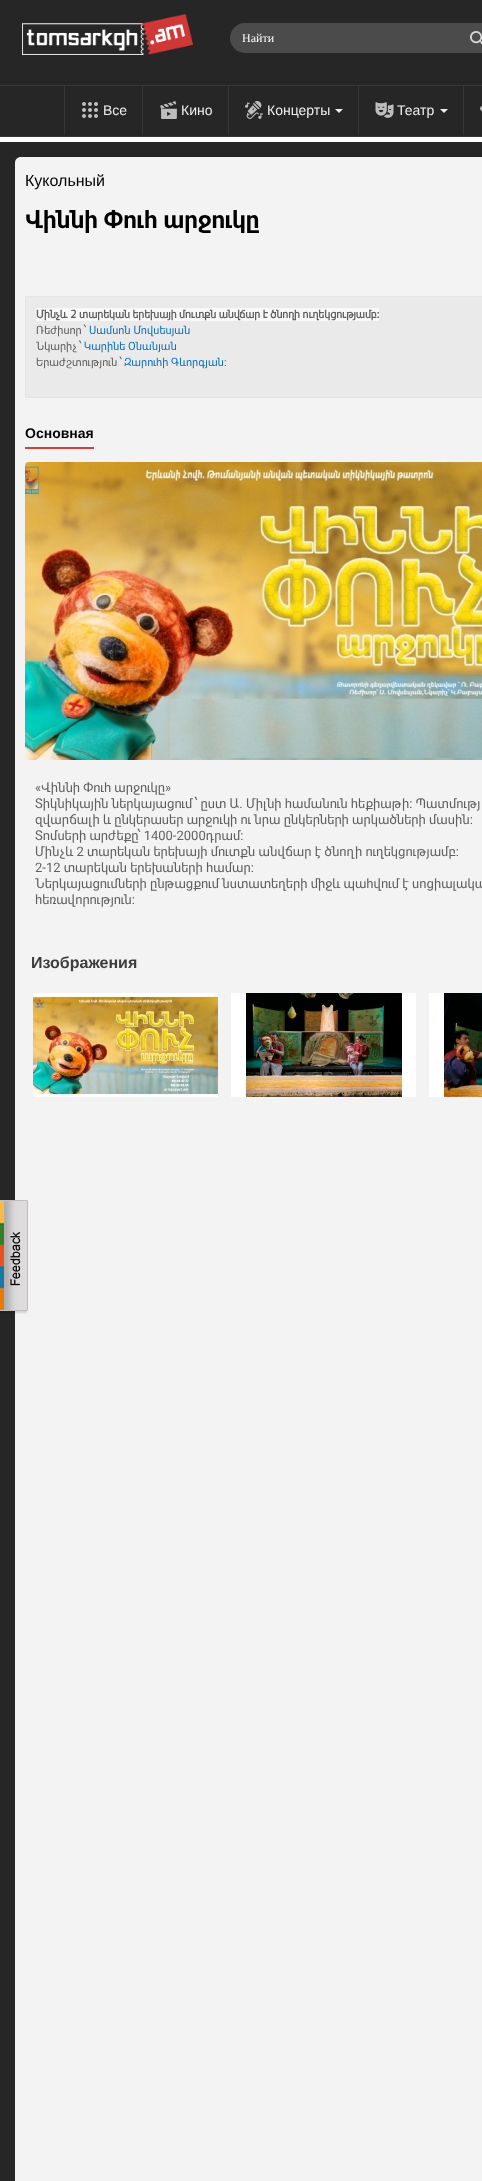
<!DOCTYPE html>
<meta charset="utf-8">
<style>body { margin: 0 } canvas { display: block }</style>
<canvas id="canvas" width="482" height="2181"></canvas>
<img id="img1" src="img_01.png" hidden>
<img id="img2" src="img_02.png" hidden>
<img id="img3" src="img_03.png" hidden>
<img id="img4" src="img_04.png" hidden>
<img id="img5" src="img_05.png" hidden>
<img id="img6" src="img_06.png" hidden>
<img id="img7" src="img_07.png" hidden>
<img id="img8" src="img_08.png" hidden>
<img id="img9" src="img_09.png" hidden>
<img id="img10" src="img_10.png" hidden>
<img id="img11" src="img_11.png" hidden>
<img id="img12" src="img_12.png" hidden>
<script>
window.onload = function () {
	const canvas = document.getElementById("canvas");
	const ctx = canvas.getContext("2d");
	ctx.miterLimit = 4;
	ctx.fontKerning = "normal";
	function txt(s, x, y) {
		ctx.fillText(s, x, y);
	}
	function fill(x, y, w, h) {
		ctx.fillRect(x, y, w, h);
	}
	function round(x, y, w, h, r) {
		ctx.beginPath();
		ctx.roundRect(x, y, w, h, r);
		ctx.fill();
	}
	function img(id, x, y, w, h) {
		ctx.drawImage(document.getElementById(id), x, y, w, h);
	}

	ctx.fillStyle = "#FFFFFF";
	fill(0, 0, 482, 2181);
	ctx.fillStyle = "#262626";
	fill(0, 0, 482, 136);
	img("img1", 22, 14, 171, 41);
	ctx.fillStyle = "#4B4B4B";
	round(230, 23, 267, 30, 15);
	img("img2", 470, 31, 12, 14);
	ctx.fillStyle = "#373737";
	fill(0, 85, 482, 1);
	fill(0, 136, 482, 1);
	ctx.beginPath();
	ctx.moveTo(143, 86);
	ctx.lineTo(143, 136);
	ctx.lineTo(142, 134);
	ctx.lineTo(142, 86);
	ctx.closePath();
	ctx.fill();
	ctx.beginPath();
	ctx.moveTo(64, 136);
	ctx.lineTo(64, 86);
	ctx.lineTo(65, 86);
	ctx.lineTo(65, 134);
	ctx.closePath();
	ctx.fill();
	img("img3", 82, 102, 16, 16);
	ctx.beginPath();
	ctx.moveTo(229, 86);
	ctx.lineTo(229, 136);
	ctx.lineTo(228, 134);
	ctx.lineTo(228, 86);
	ctx.closePath();
	ctx.fill();
	img("img4", 160, 101, 17, 18);
	ctx.beginPath();
	ctx.moveTo(359, 86);
	ctx.lineTo(359, 136);
	ctx.lineTo(358, 134);
	ctx.lineTo(358, 86);
	ctx.closePath();
	ctx.fill();
	img("img5", 245, 101, 18, 18);
	ctx.fillStyle = "#EEEEEE";
	ctx.beginPath();
	ctx.moveTo(335, 109);
	ctx.lineTo(343, 109);
	ctx.lineTo(339, 113);
	ctx.closePath();
	ctx.fill();
	ctx.fillStyle = "#373737";
	ctx.beginPath();
	ctx.moveTo(464, 86);
	ctx.lineTo(464, 136);
	ctx.lineTo(463, 134);
	ctx.lineTo(463, 86);
	ctx.closePath();
	ctx.fill();
	img("img6", 375, 102, 19, 16);
	ctx.fillStyle = "#EEEEEE";
	ctx.beginPath();
	ctx.moveTo(440, 109);
	ctx.lineTo(448, 109);
	ctx.lineTo(444, 113);
	ctx.closePath();
	ctx.fill();
	img("img7", 480, 106, 2, 6);
	ctx.fillStyle = "#262626";
	fill(0, 142, 482, 2039);
	ctx.fillStyle = "#F3F3F3";
	ctx.beginPath();
	ctx.moveTo(21, 157);
	ctx.lineTo(482, 157);
	ctx.bezierCurveTo(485.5, 157, 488, 159.5, 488, 163);
	ctx.lineTo(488, 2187);
	ctx.lineTo(15, 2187);
	ctx.lineTo(15, 163);
	ctx.bezierCurveTo(15, 159.5, 17.5, 157, 21, 157);
	ctx.closePath();
	ctx.fill();
	ctx.fillStyle = "#EAEAEA";
	ctx.beginPath();
	ctx.rect(25.5, 296.5, 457, 101);
	ctx.fill();
	ctx.strokeStyle = "#E5E5E5";
	ctx.stroke();
	ctx.fillStyle = "#F8F8F8";
	fill(36, 308, 343, 13);
	ctx.fillStyle = "#D04137";
	fill(25, 447, 69, 2);
	img("img8", 25, 462, 457, 298);
	img("img9", 33, 993, 185, 104);
	img("img10", 231, 993, 185, 104);
	img("img11", 429, 993, 53, 104);
	img("img12", 0, 1200, 28, 114);
	ctx.font = "12px Liberation Serif";
	ctx.fillStyle = "#FFFFFF";
	txt("Найти", 242, 42);
	ctx.font = "14px Liberation Sans";
	ctx.fillStyle = "#EEEEEE";
	txt("Все", 103, 115);
	txt("Кино", 181, 115);
	txt("Концерты", 267, 115);
	txt("Театр", 397, 115);
	ctx.font = "16px Liberation Sans";
	ctx.fillStyle = "#000000";
	txt("Кукольный", 25, 186);
	ctx.font = "bold 24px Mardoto";
	txt("Վիննի Փուհ արջուկը", 25, 228);
	ctx.font = "bold 11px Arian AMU";
	ctx.fillStyle = "#5F5F5F";
	txt("Մինչև 2 տարեկան երեխայի մուտքն անվճար է ծնողի ուղեկցությամբ:", 36, 318);
	ctx.font = "11px Mardoto";
	txt("Ռեժիսոր ՝", 36, 334);
	ctx.fillStyle = "#0F72BE";
	txt("Սամսոն Մովսեսյան", 89, 334);
	ctx.fillStyle = "#5F5F5F";
	txt("Նկարիչ ՝", 36, 350);
	ctx.fillStyle = "#0F72BE";
	txt("Կարինե Օնանյան", 84, 350);
	ctx.fillStyle = "#5F5F5F";
	txt("Երաժշտություն ՝", 36, 366);
	ctx.fillStyle = "#0F72BE";
	txt("Զարուհի Գևորգյան", 124, 366);
	ctx.fillStyle = "#5F5F5F";
	txt(":", 224, 366);
	ctx.font = "bold 14px Liberation Sans";
	ctx.fillStyle = "#000000";
	txt("Основная", 25, 438);
	ctx.font = "13px Mardoto";
	ctx.fillStyle = "#5F5F5F";
	txt("«Վիննի Փուհ արջուկը»", 35, 792);
	txt("Տիկնիկային ներկայացում ՝ ըստ Ա. Միլնի համանուն հեքիաթի: Պատմությ", 35, 808);
	txt("զվարճալի և ընկերասեր արջուկի ու նրա ընկերների արկածների մասին:", 35, 824);
	txt("Տոմսերի արժեքը՝ 1400-2000դրամ:", 35, 840);
	txt("Մինչև 2 տարեկան երեխայի մուտքն անվճար է ծնողի ուղեկցությամբ:", 35, 856);
	txt("2-12 տարեկան երեխաների համար:", 35, 872);
	txt("Ներկայացումների ընթացքում նստատեղերի միջև պահվում է սոցիալակա", 35, 888);
	txt("հեռավորություն:", 35, 904);
	ctx.font = "bold 16px Liberation Sans";
	ctx.fillStyle = "#3C3C3C";
	txt("Изображения", 31, 968);
};
</script>
